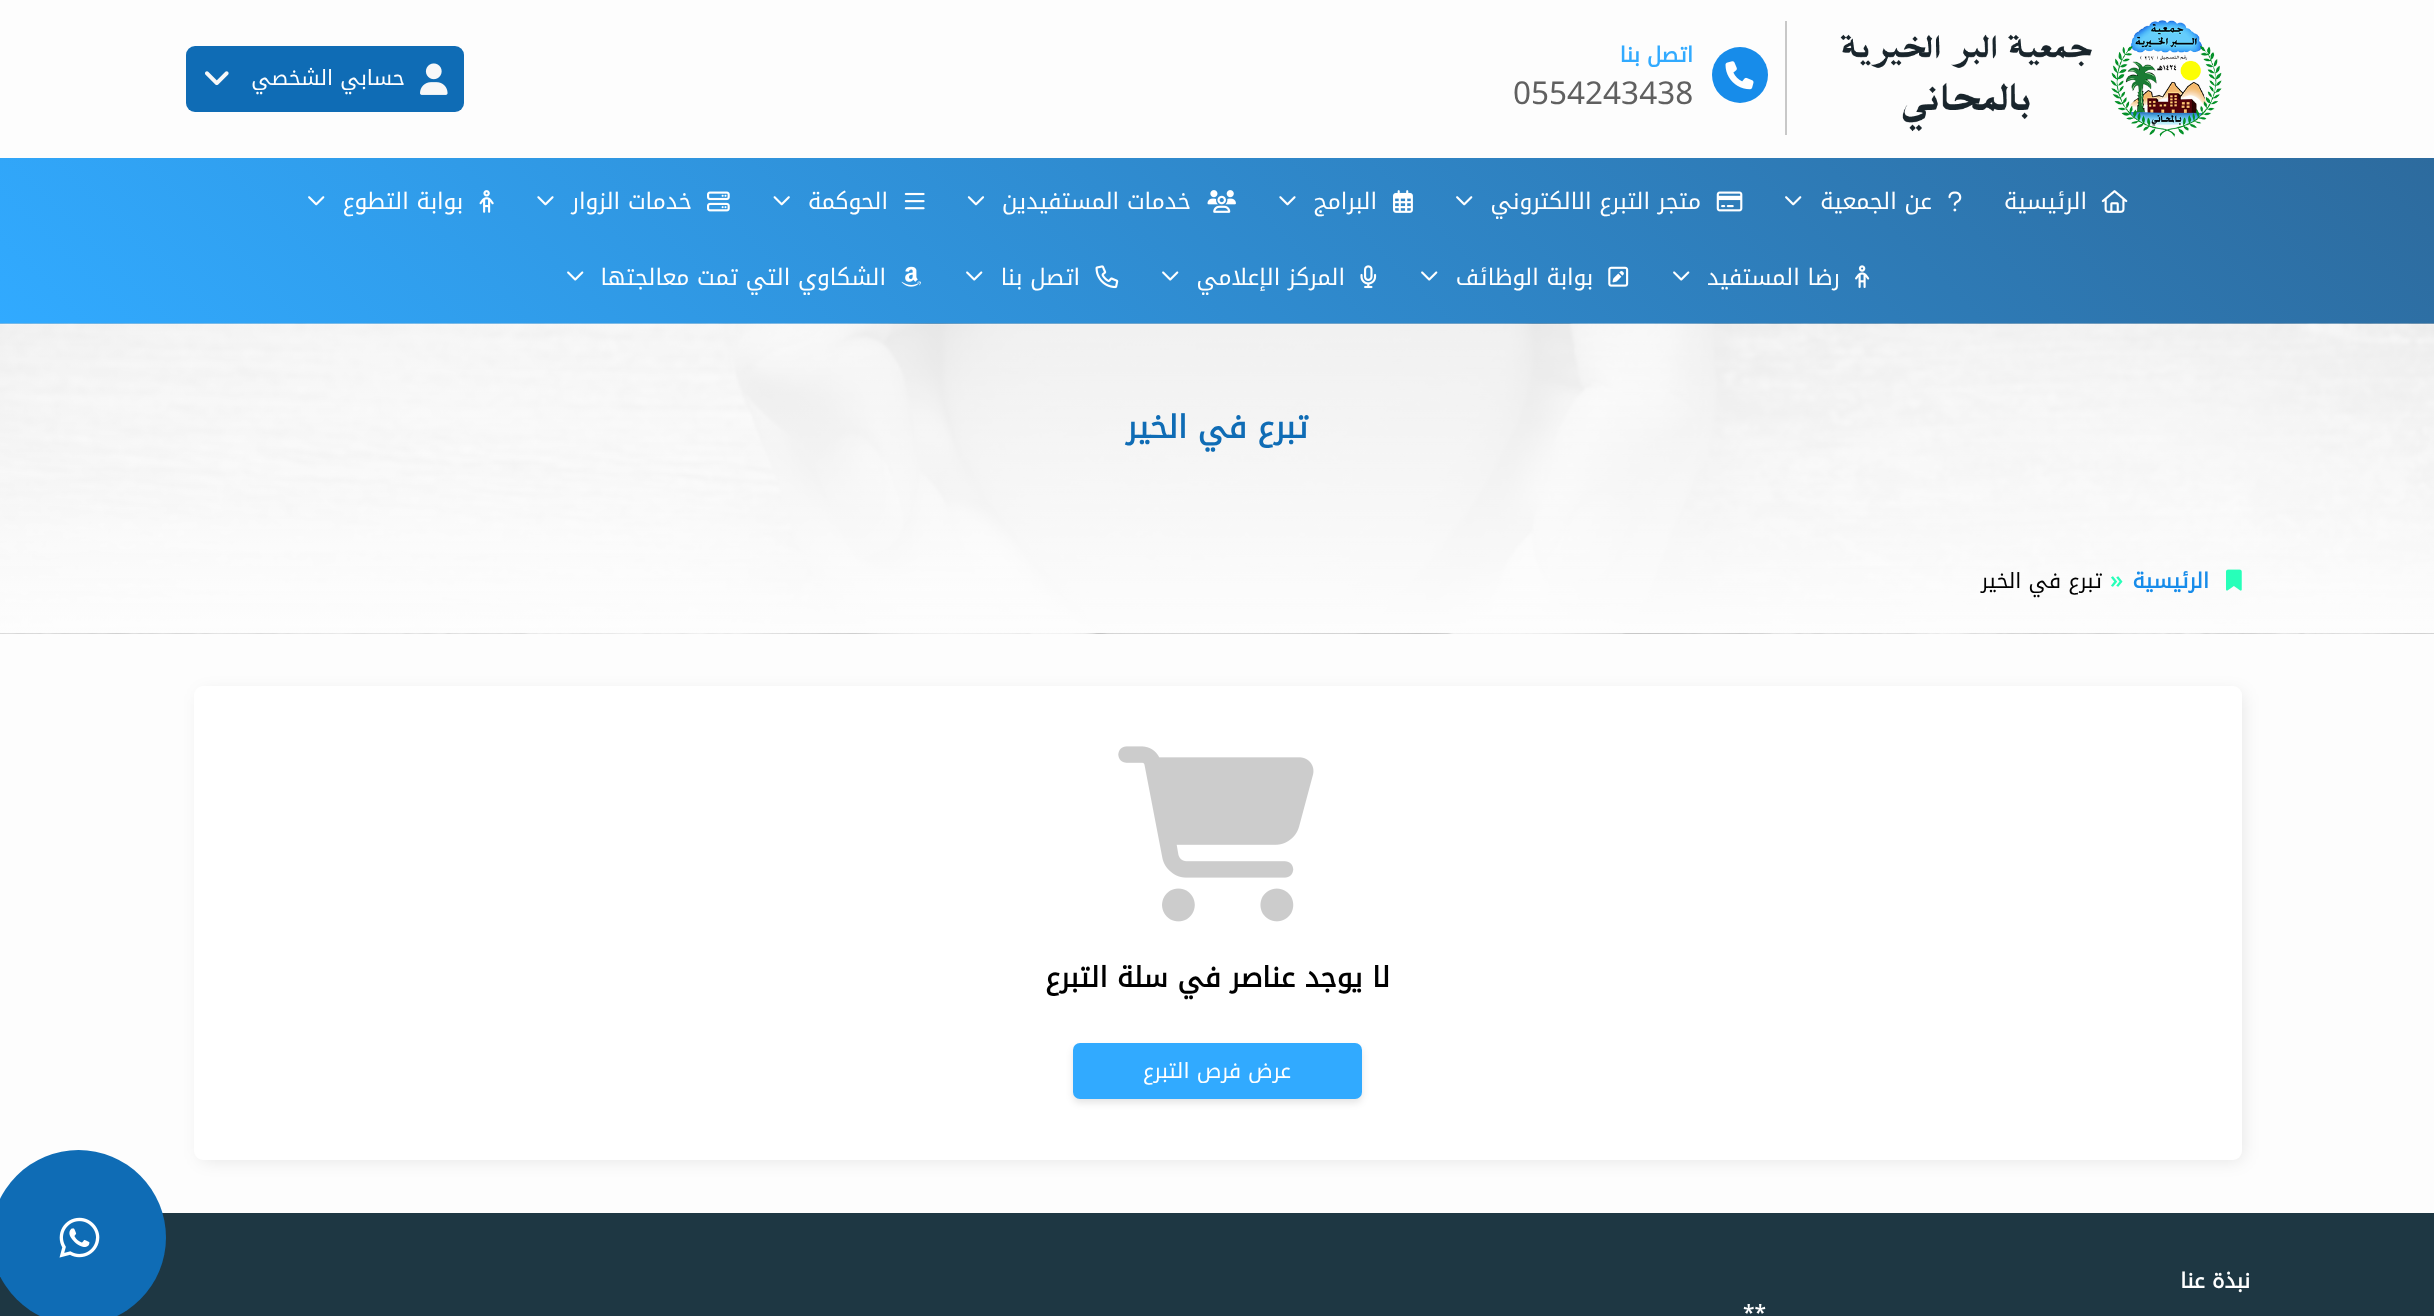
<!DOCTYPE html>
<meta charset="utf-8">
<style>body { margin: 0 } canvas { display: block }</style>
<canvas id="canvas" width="2434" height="1316"></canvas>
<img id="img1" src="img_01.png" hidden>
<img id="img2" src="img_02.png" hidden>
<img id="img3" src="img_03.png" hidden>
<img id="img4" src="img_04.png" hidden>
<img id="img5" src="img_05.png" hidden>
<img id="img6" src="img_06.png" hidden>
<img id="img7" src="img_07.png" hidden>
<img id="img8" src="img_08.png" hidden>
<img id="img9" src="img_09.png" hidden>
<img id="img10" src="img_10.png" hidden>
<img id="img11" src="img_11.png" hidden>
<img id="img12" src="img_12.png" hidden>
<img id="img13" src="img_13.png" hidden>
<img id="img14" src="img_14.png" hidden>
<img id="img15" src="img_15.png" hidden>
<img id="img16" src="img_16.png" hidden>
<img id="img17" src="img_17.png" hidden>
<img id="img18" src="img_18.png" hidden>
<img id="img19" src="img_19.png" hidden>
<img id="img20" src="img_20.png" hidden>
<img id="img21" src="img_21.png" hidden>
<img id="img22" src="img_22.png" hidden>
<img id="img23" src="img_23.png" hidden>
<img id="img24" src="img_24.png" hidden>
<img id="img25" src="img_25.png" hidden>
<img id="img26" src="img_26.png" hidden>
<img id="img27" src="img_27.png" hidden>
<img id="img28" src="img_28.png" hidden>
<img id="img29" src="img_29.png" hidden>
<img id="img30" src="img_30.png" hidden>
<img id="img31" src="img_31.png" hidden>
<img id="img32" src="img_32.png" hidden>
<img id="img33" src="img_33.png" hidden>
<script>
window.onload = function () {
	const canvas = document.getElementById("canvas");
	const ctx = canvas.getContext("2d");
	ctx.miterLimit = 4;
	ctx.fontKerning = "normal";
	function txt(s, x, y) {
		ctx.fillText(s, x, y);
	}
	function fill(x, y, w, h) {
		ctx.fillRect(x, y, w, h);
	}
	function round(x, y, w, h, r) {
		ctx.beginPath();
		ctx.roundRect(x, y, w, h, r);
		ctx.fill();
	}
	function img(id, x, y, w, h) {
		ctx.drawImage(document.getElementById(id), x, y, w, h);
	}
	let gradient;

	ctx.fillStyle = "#FDFDFD";
	fill(0, 0, 2434, 1316);
	img("img1", 1840, 20, 382, 118);
	ctx.fillStyle = "#C8C8C8";
	fill(1785, 21, 2, 114);
	ctx.fillStyle = "#178CEA";
	ctx.beginPath();
	ctx.arc(1740, 75, 28, 0, Math.PI * 2);
	ctx.fill();
	img("img2", 1725, 61, 29, 29);
	ctx.fillStyle = "#0F6CB5";
	round(186, 46, 278, 66, 9);
	img("img3", 420, 63, 28, 32);
	img("img4", 205, 71, 24, 15);
	gradient = ctx.createLinearGradient(567, 891, 1867, -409);
	gradient.addColorStop(0, "#31AAFF");
	gradient.addColorStop(1, "#2D6B9E");
	ctx.fillStyle = gradient;
	fill(0, 158, 2434, 166);
	img("img5", 2101, 190, 27, 23);
	img("img6", 1948, 191, 14, 21);
	img("img7", 1785, 196, 17, 10);
	img("img8", 1716, 191, 27, 21);
	img("img9", 1456, 196, 17, 10);
	img("img10", 1393, 190, 20, 23);
	img("img11", 1279, 196, 17, 10);
	img("img12", 1207, 190, 29, 23);
	img("img13", 967, 196, 18, 10);
	img("img14", 904, 192, 21, 18);
	img("img15", 773, 196, 17, 10);
	img("img16", 707, 191, 23, 21);
	img("img17", 537, 196, 17, 10);
	img("img18", 479, 190, 15, 23);
	img("img19", 308, 196, 17, 10);
	img("img20", 1855, 265, 15, 23);
	img("img21", 1673, 271, 17, 10);
	img("img22", 1608, 266, 21, 21);
	img("img23", 1421, 271, 17, 10);
	img("img24", 1360, 265, 17, 24);
	img("img25", 1162, 271, 17, 10);
	img("img26", 1095, 265, 24, 24);
	img("img27", 966, 271, 17, 10);
	img("img28", 901, 266, 20, 21);
	img("img29", 567, 271, 17, 10);
	img("img30", 0, 323, 2434, 311);
	img("img31", 2226, 569, 16, 22);
	ctx.fillStyle = "rgba(0, 0, 0, 0.1)";
	ctx.filter = "blur(9px)";
	ctx.beginPath();
	ctx.roundRect(201, 693, 2041, 467, 5);
	ctx.fill();
	ctx.filter = "none";
	ctx.fillStyle = "#FFFFFF";
	round(194, 686, 2048, 474, 9);
	img("img32", 1118, 746, 196, 176);
	ctx.fillStyle = "rgba(0, 0, 0, 0.1)";
	ctx.filter = "blur(3.5px)";
	ctx.beginPath();
	ctx.roundRect(1073, 1047, 289, 56, 7);
	ctx.fill();
	ctx.filter = "none";
	ctx.fillStyle = "#31AAFF";
	round(1073, 1043, 289, 56, 7);
	ctx.fillStyle = "#1E3743";
	fill(0, 1213, 2434, 103);
	ctx.fillStyle = "#0F6CB5";
	ctx.beginPath();
	ctx.arc(78.5, 1237.5, 87.5, 0, Math.PI * 2);
	ctx.fill();
	img("img33", 59, 1217, 41, 41);
	ctx.direction = "rtl";
	ctx.font = "bold 21px Noto Kufi Arabic";
	ctx.fillStyle = "#31AAFF";
	txt("اتصل بنا", 1693, 62);
	ctx.direction = "ltr";
	ctx.font = "31.5px Noto Kufi Arabic";
	ctx.fillStyle = "#606060";
	txt("0554243438", 1513, 104);
	ctx.direction = "rtl";
	ctx.font = "21px Noto Kufi Arabic";
	ctx.fillStyle = "#FFFFFF";
	txt("حسابي الشخصي", 405, 85);
	ctx.font = "22.75px Noto Kufi Arabic";
	txt("الرئيسية", 2087, 209);
	txt("عن الجمعية", 1932, 209);
	txt("متجر التبرع الالكتروني", 1701, 209);
	txt("البرامج", 1377, 209);
	txt("خدمات المستفيدين", 1191, 209);
	txt("الحوكمة", 888, 209);
	txt("خدمات الزوار", 692, 209);
	txt("بوابة التطوع", 463, 209);
	txt("رضا المستفيد", 1840, 285);
	txt("بوابة الوظائف", 1593, 285);
	txt("المركز الإعلامي", 1345, 285);
	txt("اتصل بنا", 1080, 285);
	txt("الشكاوي التي تمت معالجتها", 886, 285);
	ctx.font = "bold 31.5px Noto Kufi Arabic";
	ctx.fillStyle = "#0F6CB5";
	txt("تبرع في الخير", 1308, 438);
	ctx.font = "bold 21px Noto Kufi Arabic";
	ctx.fillStyle = "#178CEA";
	txt("الرئيسية", 2209, 588);
	ctx.direction = "ltr";
	ctx.font = "600 24px Open Sans";
	ctx.fillStyle = "#27FFB9";
	txt("»", 2110, 588);
	ctx.direction = "rtl";
	ctx.font = "21px Noto Kufi Arabic";
	ctx.fillStyle = "#000000";
	txt("تبرع في الخير", 2102, 588);
	ctx.font = "bold 28px Noto Kufi Arabic";
	txt("لا يوجد عناصر في سلة التبرع", 1390, 987);
	ctx.font = "21px Noto Kufi Arabic";
	ctx.fillStyle = "#FFFFFF";
	txt("عرض فرص التبرع", 1291, 1078);
	ctx.font = "bold 21px Noto Kufi Arabic";
	txt("نبذة عنا", 2250, 1288);
	ctx.font = "600 21px Open Sans";
	txt("**", 1766, 1320);
};
</script>
